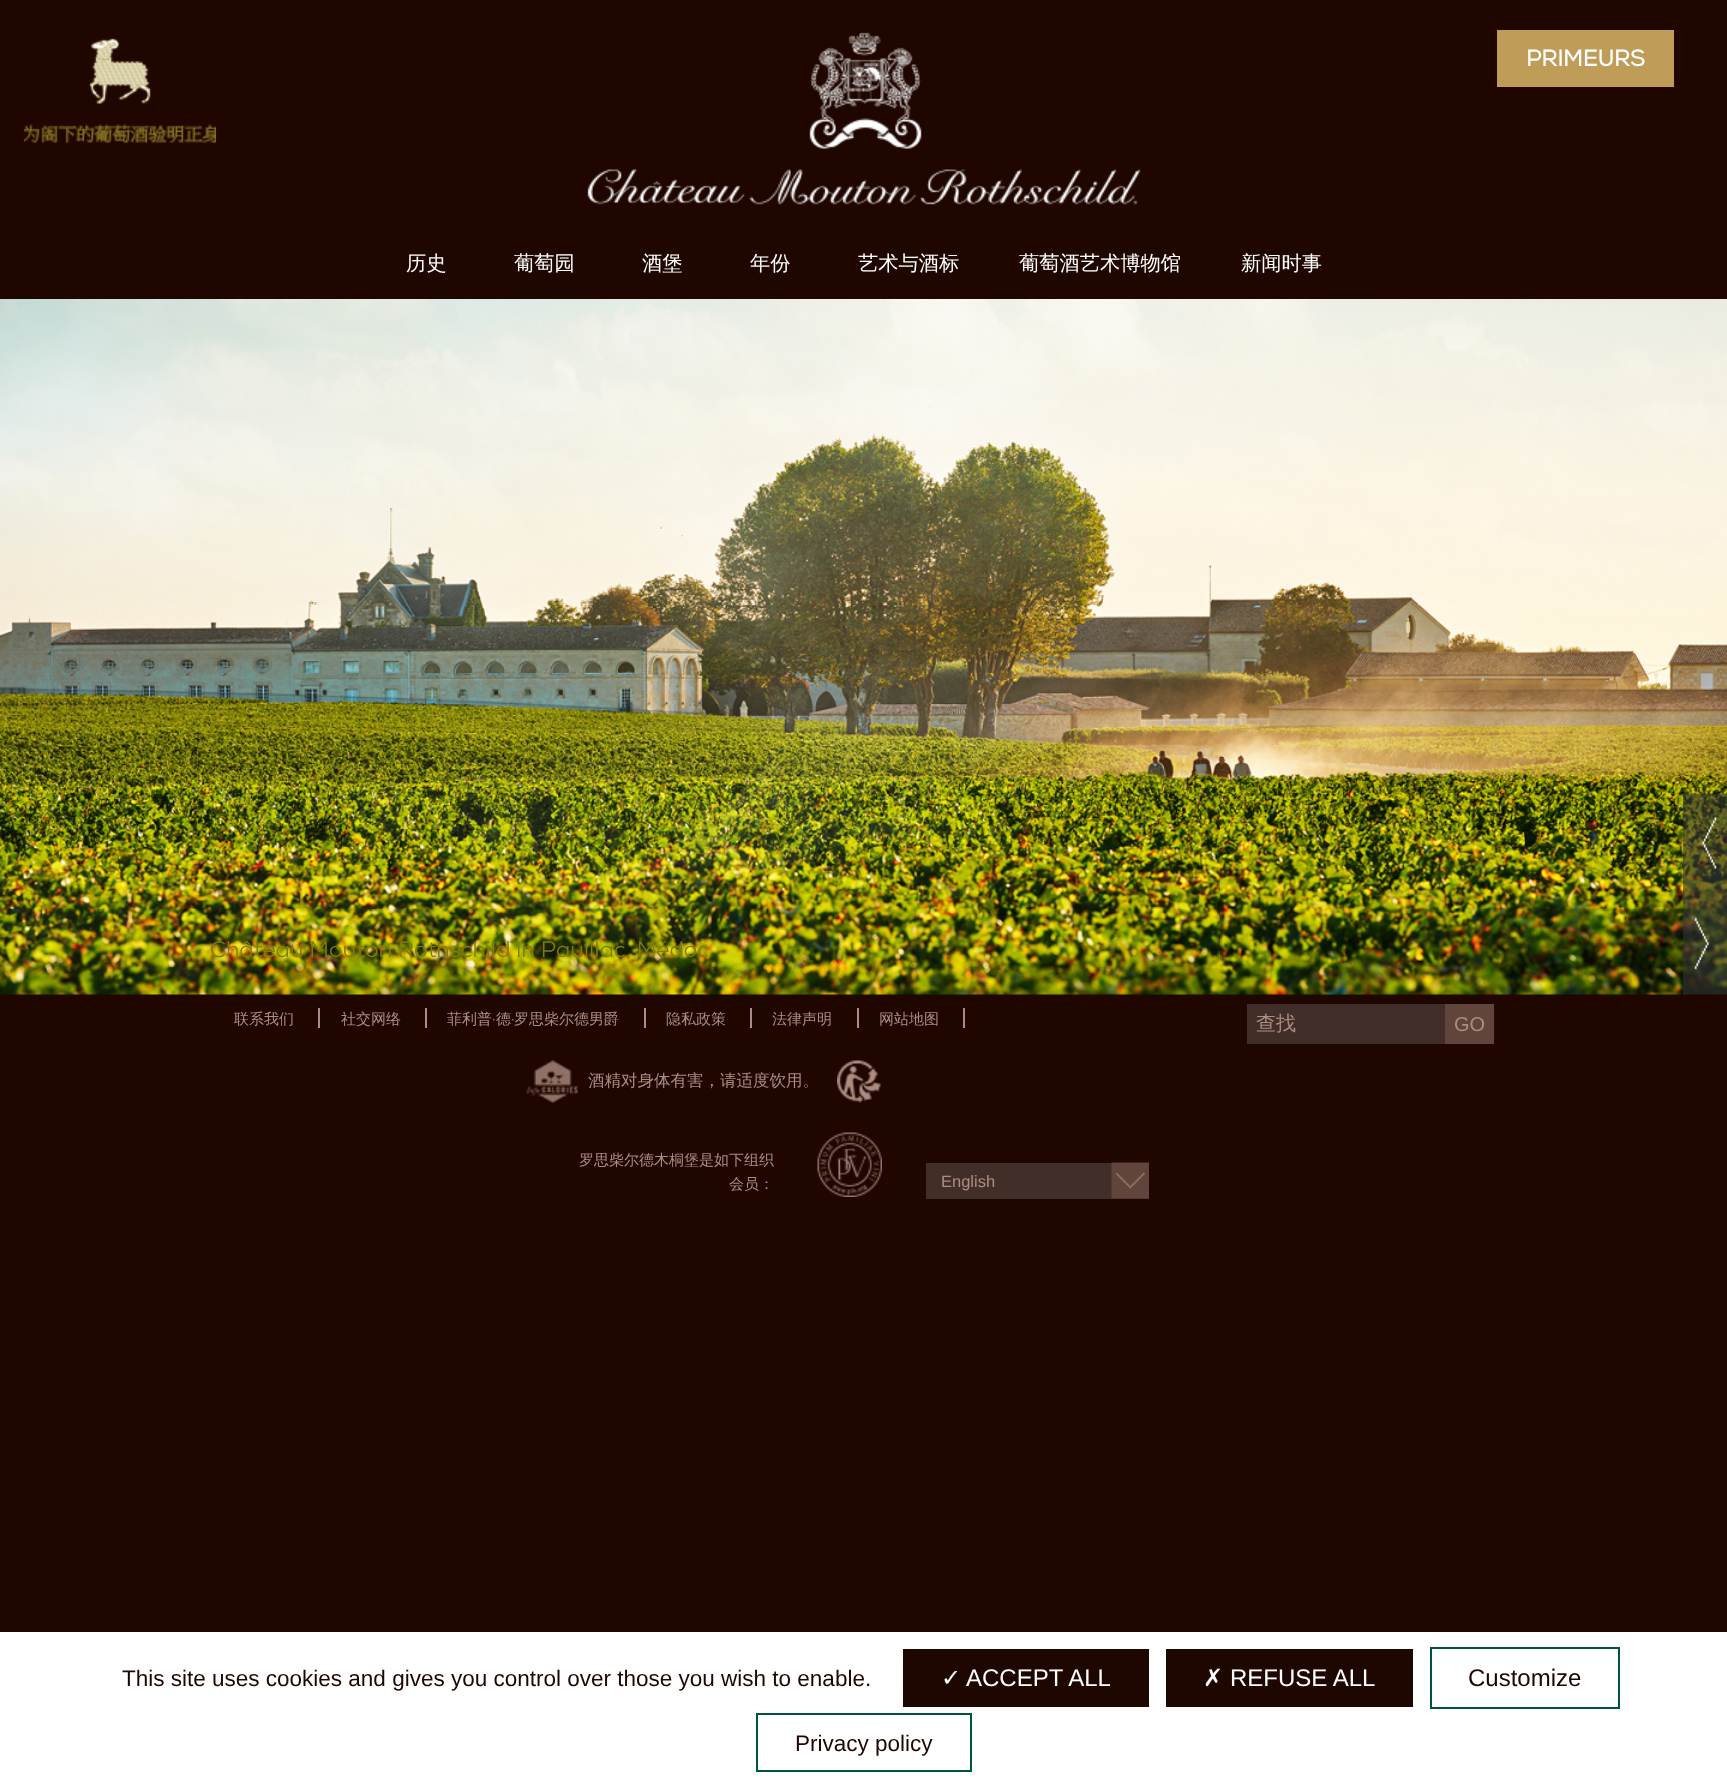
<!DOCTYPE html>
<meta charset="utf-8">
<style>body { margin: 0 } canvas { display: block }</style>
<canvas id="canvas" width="1727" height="1786"></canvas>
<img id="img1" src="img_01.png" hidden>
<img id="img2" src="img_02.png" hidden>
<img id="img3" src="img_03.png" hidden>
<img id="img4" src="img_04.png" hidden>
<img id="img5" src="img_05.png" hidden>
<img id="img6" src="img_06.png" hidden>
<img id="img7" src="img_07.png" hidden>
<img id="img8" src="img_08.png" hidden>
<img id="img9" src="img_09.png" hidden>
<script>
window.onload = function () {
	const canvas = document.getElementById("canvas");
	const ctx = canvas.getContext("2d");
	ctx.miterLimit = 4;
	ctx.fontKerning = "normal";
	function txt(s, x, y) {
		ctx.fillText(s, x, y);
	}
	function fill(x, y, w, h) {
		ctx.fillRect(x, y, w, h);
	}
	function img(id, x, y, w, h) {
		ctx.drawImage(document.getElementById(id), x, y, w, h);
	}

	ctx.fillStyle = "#1F0700";
	fill(0, 0, 1727, 1786);
	img("img1", 587, 32, 554, 173);
	img("img2", 24, 38, 192, 106);
	ctx.fillStyle = "#BF9D58";
	fill(1497, 30, 177, 57);
	img("img3", 0, 299, 1727, 696);
	img("img4", 1683, 793, 44, 101);
	img("img5", 1683, 894, 44, 101);
	ctx.fillStyle = "#AD8D81";
	fill(318, 1008, 2, 20);
	fill(425, 1008, 2, 20);
	fill(644, 1008, 2, 20);
	fill(750, 1008, 2, 20);
	fill(857, 1008, 2, 20);
	fill(963, 1008, 2, 20);
	ctx.fillStyle = "#422E28";
	fill(1247, 1004, 198, 40);
	ctx.fillStyle = "#61453C";
	fill(1445, 1004, 49, 40);
	img("img6", 526, 1060, 52, 43);
	img("img7", 837, 1060, 44, 43);
	img("img8", 817, 1132, 65, 65);
	ctx.fillStyle = "#422E28";
	fill(926, 1163, 223, 36);
	img("img9", 1111, 1162, 38, 37);
	ctx.fillStyle = "#FFFFFF";
	fill(0, 1632, 1727, 154);
	ctx.fillStyle = "#1F0701";
	fill(903, 1649, 246, 58);
	fill(1166, 1649, 247, 58);
	ctx.strokeStyle = "#005244";
	ctx.lineWidth = 2;
	ctx.strokeRect(1431, 1648, 188, 60);
	ctx.strokeRect(757, 1714, 214, 57);
	ctx.font = "bold 22.5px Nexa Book";
	ctx.fillStyle = "#FFFFFF";
	txt("PRIMEURS", 1526, 66);
	ctx.font = "500 20.25px WenQuanYi Zen Hei";
	txt("历史", 406, 270);
	txt("葡萄园", 514, 270);
	txt("酒堡", 642, 270);
	txt("年份", 750, 270);
	txt("艺术与酒标", 858, 270);
	txt("葡萄酒艺术博物馆", 1019, 270);
	txt("新闻时事", 1241, 270);
	ctx.font = "22.5px Nexa Book";
	ctx.fillStyle = "#827C0A";
	txt("Château Mouton Rothschild in Pauillac, Médoc", 210, 957);
	ctx.font = "500 15px WenQuanYi Zen Hei";
	ctx.fillStyle = "#AD8D81";
	txt("联系我们", 234, 1024);
	txt("社交网络", 341, 1024);
	txt("菲利普", 447, 1024);
	ctx.font = "15px Nexa Book";
	txt("·", 492, 1024);
	ctx.font = "500 15px WenQuanYi Zen Hei";
	txt("德", 496, 1024);
	ctx.font = "15px Nexa Book";
	txt("·", 511, 1024);
	ctx.font = "500 15px WenQuanYi Zen Hei";
	txt("罗思柴尔德男爵", 514, 1024);
	txt("隐私政策", 666, 1024);
	txt("法律声明", 772, 1024);
	txt("网站地图", 879, 1024);
	ctx.font = "500 20px WenQuanYi Zen Hei";
	txt("查找", 1256, 1030);
	ctx.font = "20px Liberation Sans";
	txt("GO", 1454, 1031);
	ctx.font = "500 16.5px WenQuanYi Zen Hei";
	txt("酒精对身体有害，请适度饮用。", 588, 1086);
	ctx.font = "500 15px WenQuanYi Zen Hei";
	txt("罗思柴尔德木桐堡是如下组织", 579, 1165);
	txt("会员：", 729, 1189);
	ctx.font = "16.5px Liberation Sans";
	txt("English", 941, 1187);
	ctx.font = "22.5px Liberation Sans";
	ctx.fillStyle = "#1F0701";
	txt("This site uses cookies and gives you control over those you wish to enable.", 122, 1686);
	ctx.font = "24px DejaVu Sans";
	ctx.fillStyle = "#FFFFFF";
	txt("✓", 941, 1686);
	ctx.font = "24px Liberation Sans";
	txt("ACCEPT ALL", 966, 1686);
	ctx.font = "24px DejaVu Sans";
	txt("✗", 1203, 1686);
	ctx.font = "24px Liberation Sans";
	txt("REFUSE ALL", 1230, 1686);
	ctx.fillStyle = "#1F0701";
	txt("Customize", 1468, 1686);
	ctx.font = "22.5px Liberation Sans";
	txt("Privacy policy", 795, 1751);
};
</script>
